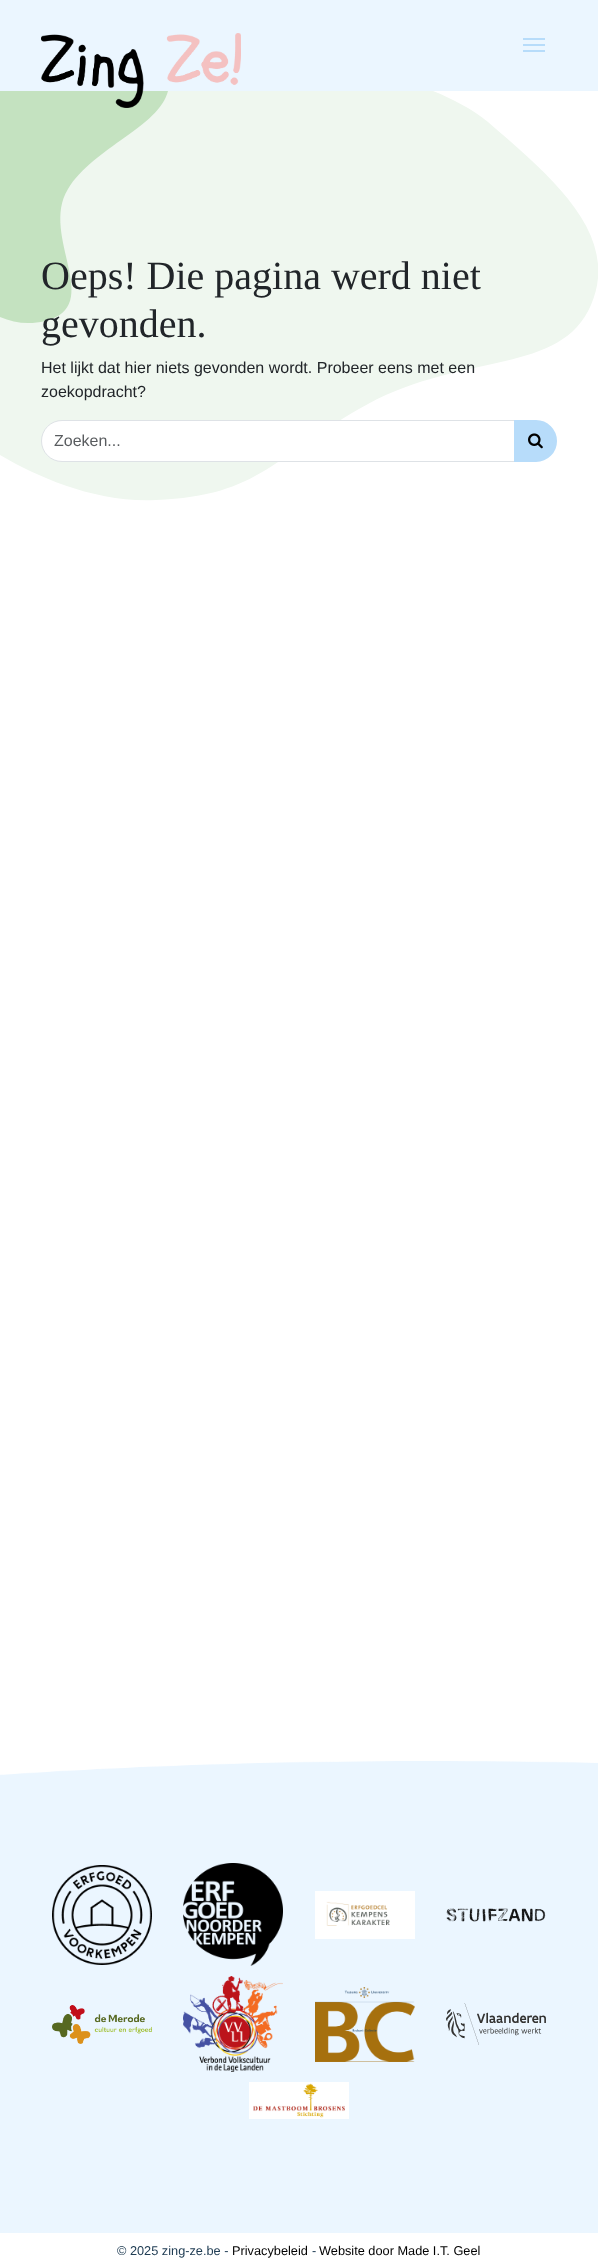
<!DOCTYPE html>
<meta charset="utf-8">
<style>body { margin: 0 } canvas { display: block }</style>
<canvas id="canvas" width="598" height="2268"></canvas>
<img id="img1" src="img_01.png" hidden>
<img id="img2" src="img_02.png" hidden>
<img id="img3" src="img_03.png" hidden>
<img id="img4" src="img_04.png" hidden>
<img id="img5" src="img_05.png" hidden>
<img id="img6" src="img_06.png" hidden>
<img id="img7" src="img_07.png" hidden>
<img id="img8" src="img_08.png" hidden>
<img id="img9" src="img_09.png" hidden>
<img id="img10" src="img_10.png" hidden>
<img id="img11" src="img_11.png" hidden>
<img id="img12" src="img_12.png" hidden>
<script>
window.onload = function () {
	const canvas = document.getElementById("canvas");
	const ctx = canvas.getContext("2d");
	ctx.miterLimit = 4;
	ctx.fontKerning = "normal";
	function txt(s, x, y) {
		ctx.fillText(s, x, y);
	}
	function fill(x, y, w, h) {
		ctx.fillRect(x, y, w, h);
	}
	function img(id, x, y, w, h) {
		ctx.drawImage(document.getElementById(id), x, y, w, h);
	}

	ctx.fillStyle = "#FFFFFF";
	fill(0, 0, 598, 2268);
	ctx.fillStyle = "#EBF6FF";
	fill(0, 0, 598, 91);
	ctx.fillStyle = "#EFF7EF";
	ctx.beginPath();
	ctx.moveTo(591, 305);
	ctx.bezierCurveTo(561, 375, 464, 352, 368, 404);
	ctx.bezierCurveTo(273, 456, 261, 496, 156, 500);
	ctx.bezierCurveTo(97, 503, 39, 478, 0, 455);
	ctx.lineTo(0, 91);
	ctx.lineTo(433, 91);
	ctx.bezierCurveTo(453, 99, 472, 109, 488, 122);
	ctx.bezierCurveTo(553, 178, 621, 235, 591, 305);
	ctx.closePath();
	ctx.fill();
	ctx.fillStyle = "#C4E2C0";
	ctx.beginPath();
	ctx.moveTo(168, 91);
	ctx.bezierCurveTo(159, 127, 94, 147, 68, 189);
	ctx.bezierCurveTo(39, 236, 106, 306, 45, 321);
	ctx.bezierCurveTo(29, 325, 14, 323, 0, 317);
	ctx.lineTo(0, 91);
	ctx.closePath();
	ctx.fill();
	img("img1", 41, 33, 200, 75);
	ctx.fillStyle = "#B7DCFA";
	fill(523, 38, 22, 2);
	fill(523, 44, 22, 2);
	fill(523, 50, 22, 2);
	ctx.fillStyle = "#FFFFFF";
	ctx.beginPath();
	ctx.roundRect(41.5, 420.5, 473, 41, [20.5, 0, 0, 20.5]);
	ctx.fill();
	ctx.strokeStyle = "#DEE2E6";
	ctx.stroke();
	ctx.fillStyle = "#B7DCFA";
	ctx.beginPath();
	ctx.roundRect(516, 422, 39, 38, [0, 19, 19, 0]);
	ctx.fill();
	ctx.strokeStyle = "#B7DCFA";
	ctx.lineWidth = 4;
	ctx.stroke();
	img("img2", 528, 433, 15, 16);
	img("img3", 0, 1761, 598, 472);
	img("img4", 52, 1865, 100, 100);
	img("img5", 183, 1863, 100, 103);
	img("img6", 315, 1891, 100, 48);
	img("img7", 446, 1908, 100, 14);
	img("img8", 52, 2005, 100, 39);
	img("img9", 183, 1976, 100, 96);
	img("img10", 315, 1987, 100, 75);
	img("img11", 446, 2003, 100, 42);
	img("img12", 249, 2082, 100, 37);
	ctx.font = "40px Liberation Serif";
	ctx.fillStyle = "#212529";
	txt("Oeps! Die pagina werd niet", 41, 289);
	txt("gevonden.", 41, 337);
	ctx.font = "16px Liberation Sans";
	txt("Het lijkt dat hier niets gevonden wordt. Probeer eens met een", 41, 373);
	txt("zoekopdracht?", 41, 397);
	ctx.fillStyle = "#595C5F";
	txt("Zoeken...", 54, 446);
	ctx.font = "12.75px Liberation Sans";
	ctx.fillStyle = "#203D54";
	txt("© 2025 zing-ze.be -", 117, 2255);
	ctx.fillStyle = "#000000";
	txt("Privacybeleid", 232, 2255);
	ctx.fillStyle = "#203D54";
	txt("-", 312, 2255);
	ctx.fillStyle = "#000000";
	txt("Website door Made I.T. Geel", 319, 2255);
};
</script>
